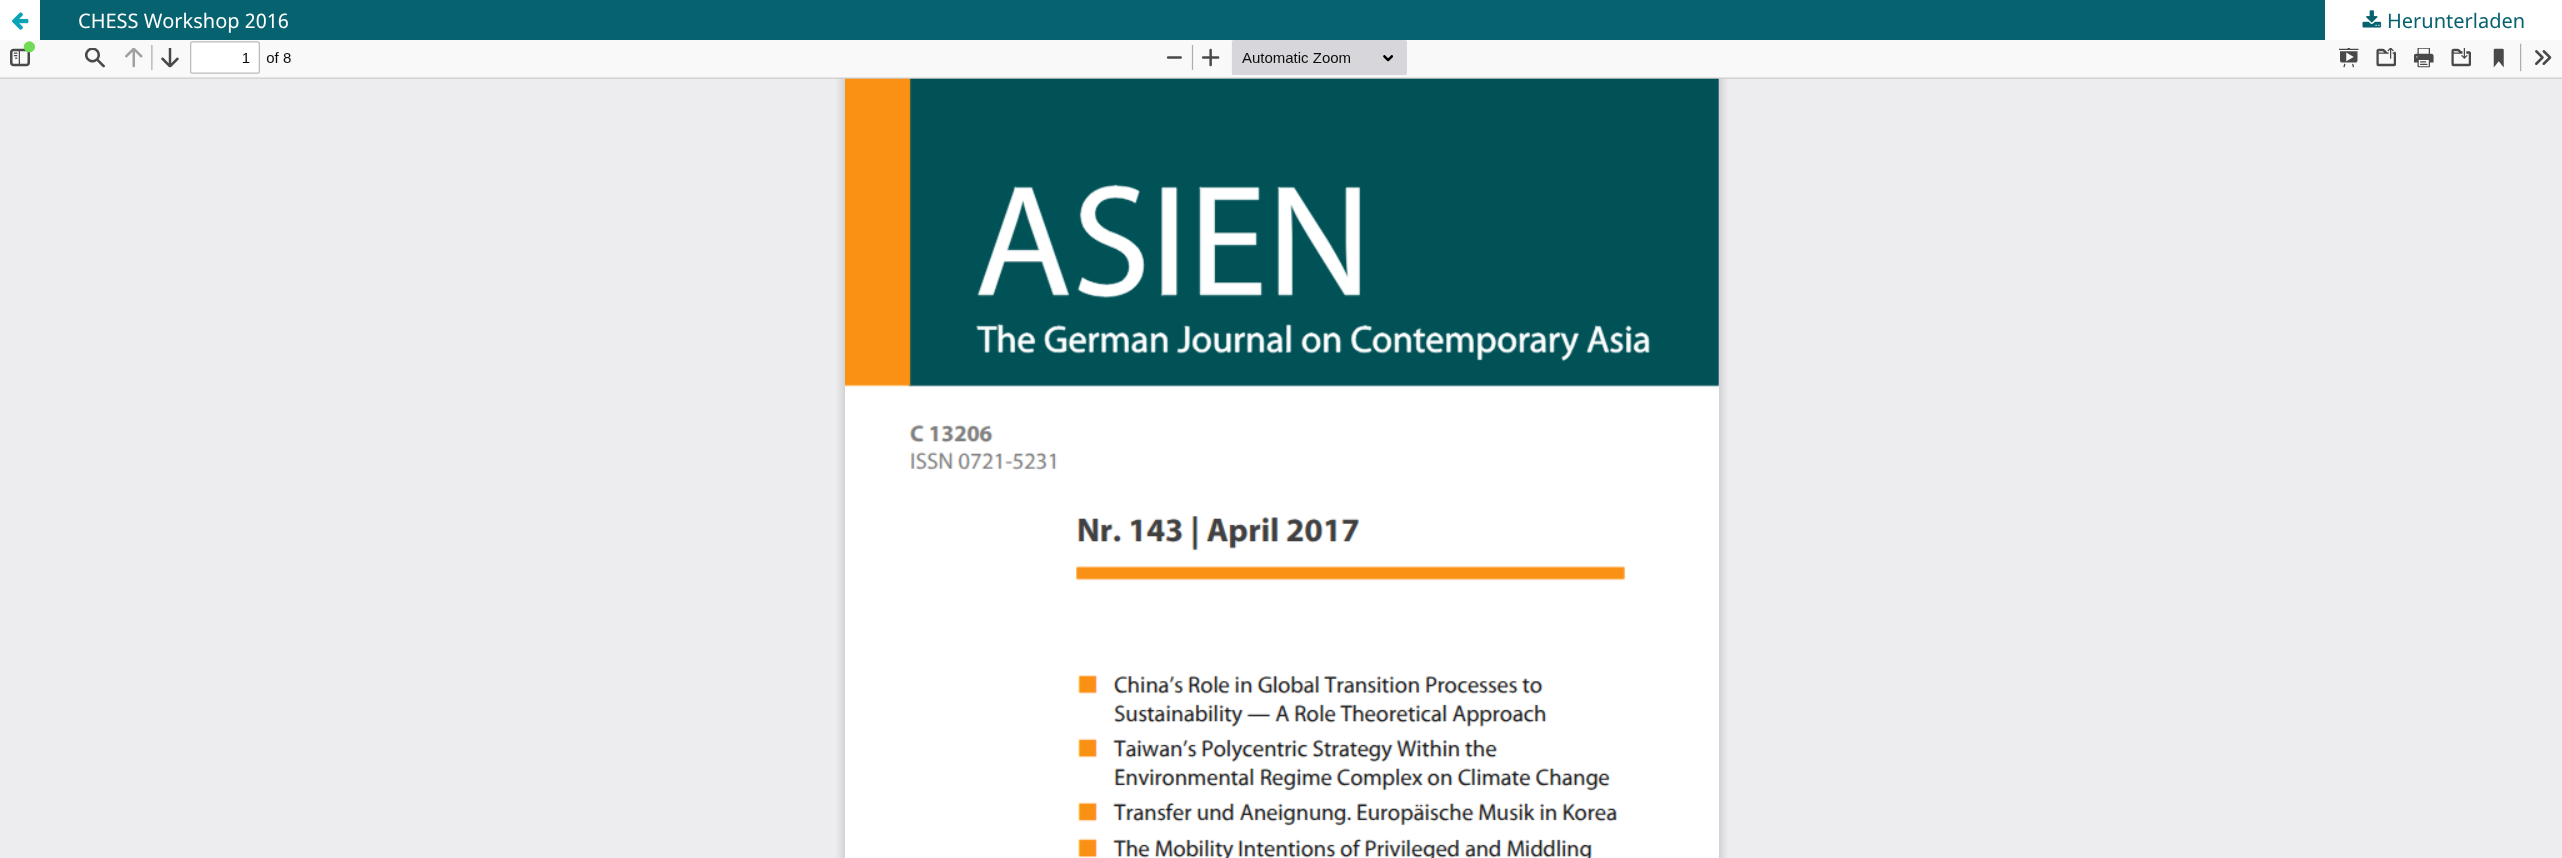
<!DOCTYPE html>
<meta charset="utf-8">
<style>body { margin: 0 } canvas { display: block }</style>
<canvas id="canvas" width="2562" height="858"></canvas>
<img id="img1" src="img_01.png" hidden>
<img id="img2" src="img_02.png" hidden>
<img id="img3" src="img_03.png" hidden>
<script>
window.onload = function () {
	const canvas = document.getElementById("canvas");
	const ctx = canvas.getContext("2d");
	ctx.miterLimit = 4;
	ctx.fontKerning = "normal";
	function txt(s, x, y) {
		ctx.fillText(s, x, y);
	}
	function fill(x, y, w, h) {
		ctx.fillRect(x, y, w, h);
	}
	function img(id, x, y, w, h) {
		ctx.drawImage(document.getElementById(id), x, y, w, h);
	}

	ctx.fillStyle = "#FFFFFF";
	fill(0, 0, 2562, 858);
	ctx.fillStyle = "#06626E";
	fill(40, 0, 2285, 40);
	img("img1", 12, 12, 17, 18);
	img("img2", 2362, 10, 20, 18);
	img("img3", 0, 40, 2562, 818);
	ctx.font = "20px Noto Sans";
	ctx.fillStyle = "#FFFFFF";
	txt("CHESS Workshop 2016", 78, 28);
	ctx.fillStyle = "#06626E";
	txt("Herunterladen", 2387, 28);
};
</script>
